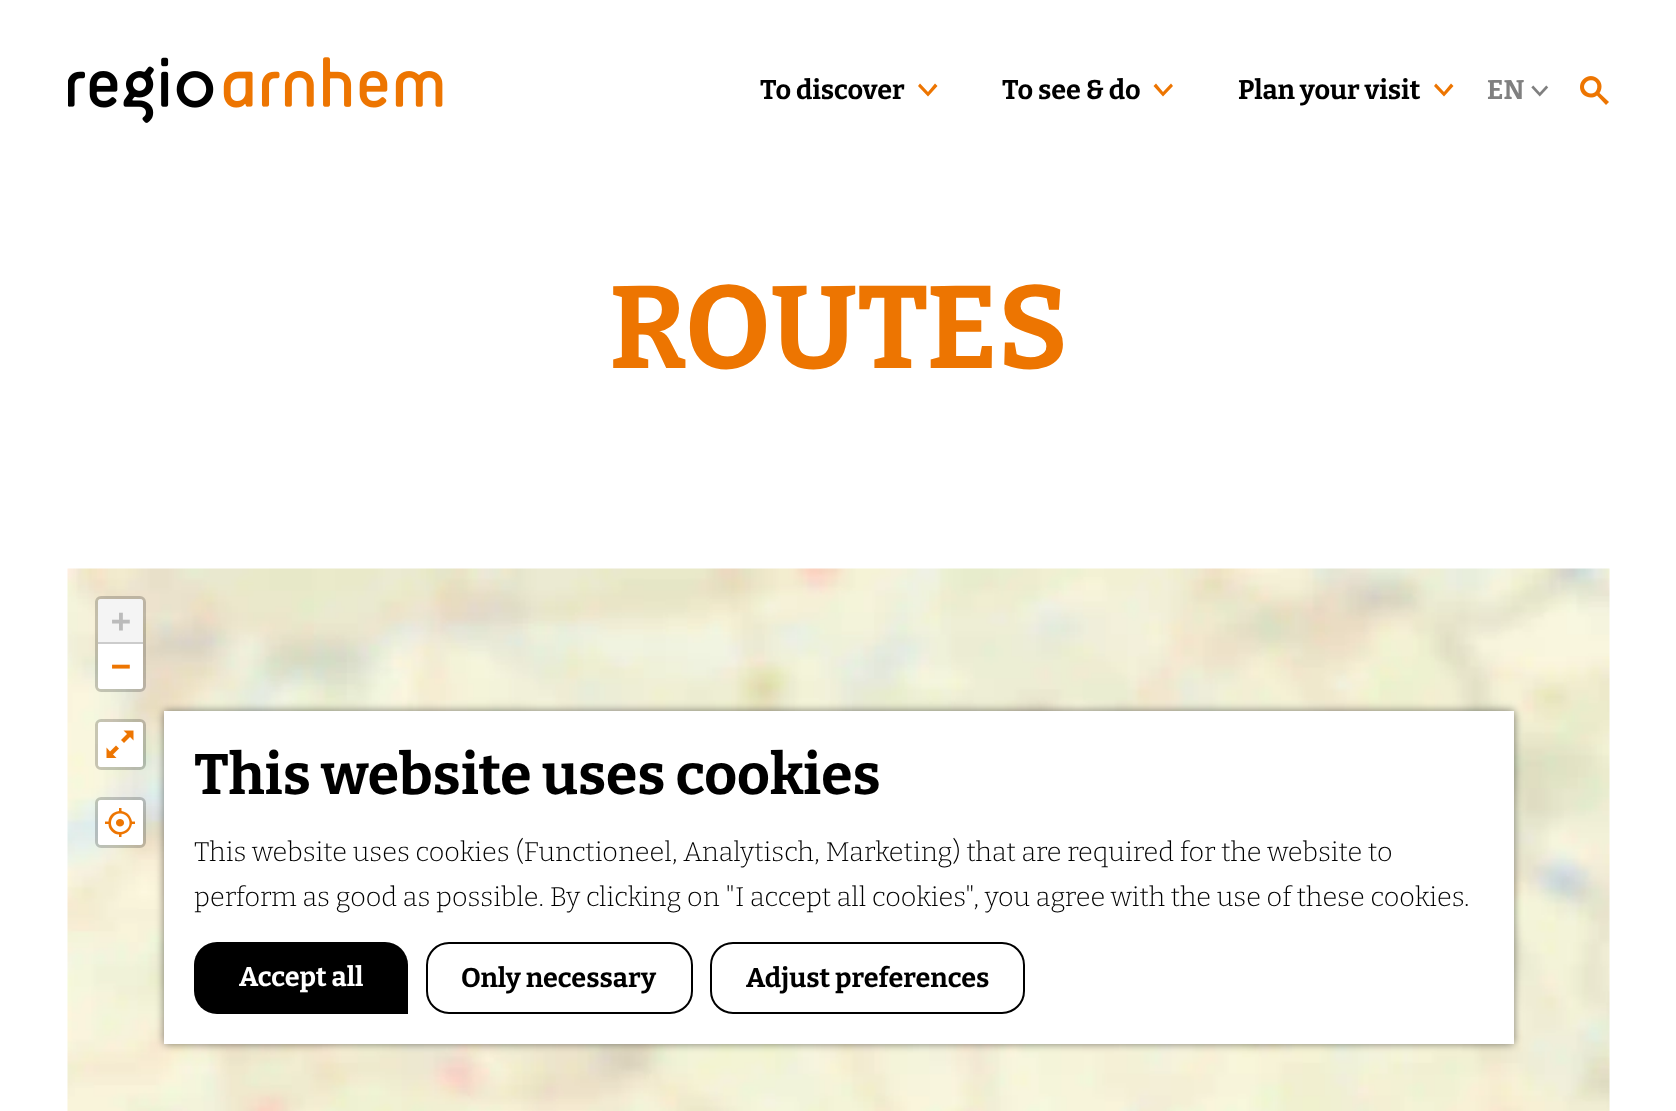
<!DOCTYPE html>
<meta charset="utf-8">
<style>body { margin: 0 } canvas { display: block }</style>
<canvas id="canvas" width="1676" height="1111"></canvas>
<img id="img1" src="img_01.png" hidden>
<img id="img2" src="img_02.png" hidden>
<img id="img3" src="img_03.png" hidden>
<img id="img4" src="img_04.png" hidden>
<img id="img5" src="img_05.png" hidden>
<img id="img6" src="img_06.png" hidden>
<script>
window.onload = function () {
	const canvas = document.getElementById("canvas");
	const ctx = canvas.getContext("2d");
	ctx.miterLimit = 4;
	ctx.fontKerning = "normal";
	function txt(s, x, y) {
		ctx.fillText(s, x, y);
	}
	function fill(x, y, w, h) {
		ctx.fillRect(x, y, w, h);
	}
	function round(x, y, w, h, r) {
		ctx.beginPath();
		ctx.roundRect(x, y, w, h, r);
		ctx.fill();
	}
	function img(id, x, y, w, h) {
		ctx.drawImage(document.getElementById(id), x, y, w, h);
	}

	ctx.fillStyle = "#FFFFFF";
	fill(0, 0, 1676, 1111);
	img("img1", 68, 57, 375, 66);
	ctx.fillStyle = "#ED7501";
	ctx.beginPath();
	ctx.moveTo(935, 83.5);
	ctx.lineTo(928, 92);
	ctx.lineTo(920, 83.5);
	ctx.lineTo(918, 86);
	ctx.lineTo(928, 96.5);
	ctx.lineTo(937.5, 86);
	ctx.closePath();
	ctx.fill();
	ctx.beginPath();
	ctx.moveTo(1171, 83.5);
	ctx.lineTo(1163, 92);
	ctx.lineTo(1156, 83.5);
	ctx.lineTo(1153.5, 86);
	ctx.lineTo(1163, 96.5);
	ctx.lineTo(1173, 86);
	ctx.closePath();
	ctx.fill();
	ctx.beginPath();
	ctx.moveTo(1451, 83.5);
	ctx.lineTo(1444, 92);
	ctx.lineTo(1436, 83.5);
	ctx.lineTo(1434, 86);
	ctx.lineTo(1444, 96.5);
	ctx.lineTo(1453.5, 86);
	ctx.closePath();
	ctx.fill();
	img("img2", 1531, 85, 18, 12);
	img("img3", 1580, 76, 29, 29);
	img("img4", 67, 568, 1543, 543);
	ctx.beginPath();
	ctx.roundRect(96.5, 597.5, 48, 93, 4.5);
	ctx.strokeStyle = "rgba(0, 0, 0, 0.2)";
	ctx.lineWidth = 3;
	ctx.stroke();
	ctx.fillStyle = "#F4F4F4";
	ctx.beginPath();
	ctx.roundRect(98, 599, 45, 45, [3, 3, 0, 0]);
	ctx.fill();
	ctx.fillStyle = "#CCCCCC";
	fill(98, 642, 45, 2);
	ctx.fillStyle = "#FFFFFF";
	ctx.beginPath();
	ctx.roundRect(98, 644, 45, 45, [0, 0, 3, 3]);
	ctx.fill();
	ctx.beginPath();
	ctx.roundRect(96.5, 720.5, 48, 48, 4.5);
	ctx.stroke();
	round(98, 722, 45, 45, 3);
	img("img5", 106, 730, 28, 28);
	ctx.beginPath();
	ctx.roundRect(96.5, 798.5, 48, 48, 4.5);
	ctx.stroke();
	round(98, 800, 45, 45, 3);
	img("img6", 105, 808, 30, 29);
	ctx.fillStyle = "rgba(0, 0, 0, 0.5)";
	ctx.filter = "blur(4px)";
	ctx.beginPath();
	ctx.rect(164, 711, 1350, 333);
	ctx.fill();
	ctx.filter = "none";
	ctx.fillStyle = "#FFFFFF";
	fill(164, 711, 1350, 333);
	ctx.fillStyle = "#000000";
	ctx.beginPath();
	ctx.roundRect(194, 942, 214, 72, [23, 23, 0, 23]);
	ctx.fill();
	ctx.beginPath();
	ctx.roundRect(427, 943, 265, 70, 22);
	ctx.strokeStyle = "#000000";
	ctx.lineWidth = 2;
	ctx.stroke();
	ctx.beginPath();
	ctx.roundRect(711, 943, 313, 70, 22);
	ctx.stroke();
	ctx.font = "100 27px Bitter";
	txt("To discover", 760, 99);
	txt("To see & do", 1002, 99);
	txt("Plan your visit", 1238, 99);
	ctx.fillStyle = "#808080";
	txt("EN", 1487, 99);
	ctx.font = "100 117px Bitter";
	ctx.fillStyle = "#ED7501";
	txt("ROUTES", 609, 368);
	ctx.font = "bold 33px DejaVu Sans Mono";
	ctx.fillStyle = "#BBBBBB";
	txt("+", 111, 632);
	ctx.fillStyle = "#ED7501";
	txt("−", 111, 677);
	ctx.font = "100 57px Bitter";
	ctx.fillStyle = "#000000";
	txt("This website uses cookies", 194, 794);
	ctx.font = "100 27px 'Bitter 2'";
	txt("This website uses cookies (Functioneel, Analytisch, Marketing) that are required for the website to", 194, 861);
	txt("perform as good as possible. By clicking on \"I accept all cookies\", you agree with the use of these cookies.", 194, 906);
	ctx.font = "100 27px Bitter";
	ctx.fillStyle = "#FFFFFF";
	txt("Accept all", 239, 986);
	ctx.fillStyle = "#000000";
	txt("Only necessary", 461, 987);
	txt("Adjust preferences", 746, 987);
};
</script>
